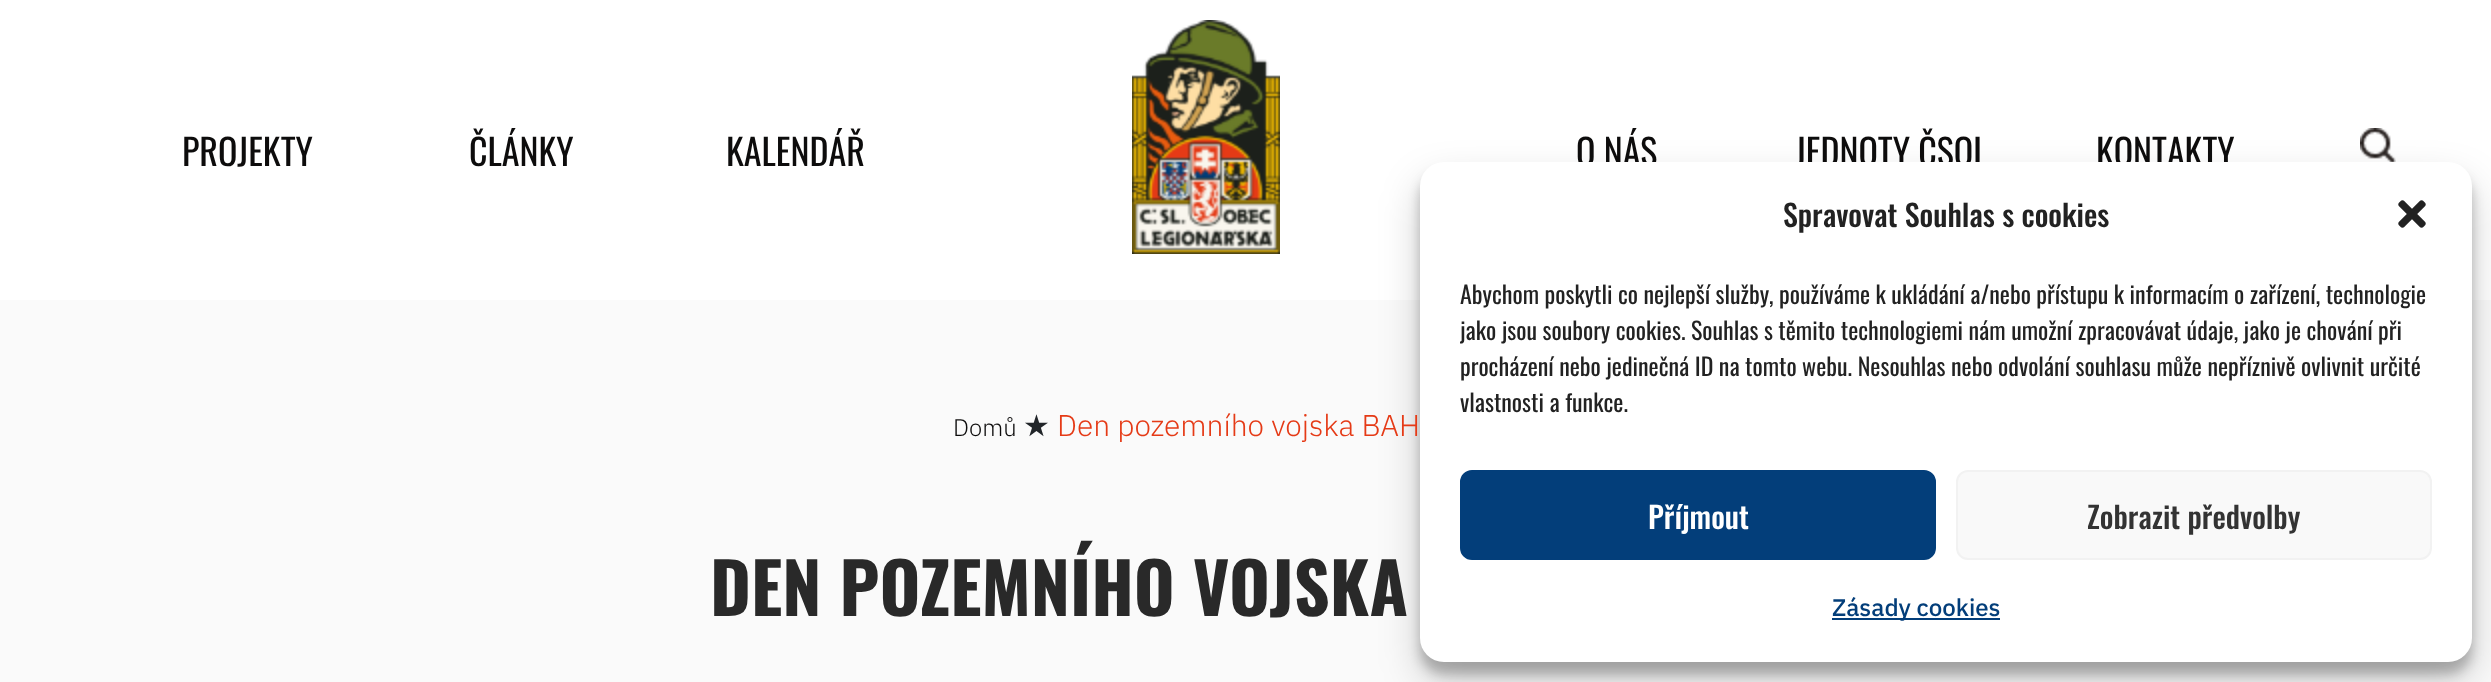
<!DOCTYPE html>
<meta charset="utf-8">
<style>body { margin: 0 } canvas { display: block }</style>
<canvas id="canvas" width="2491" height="682"></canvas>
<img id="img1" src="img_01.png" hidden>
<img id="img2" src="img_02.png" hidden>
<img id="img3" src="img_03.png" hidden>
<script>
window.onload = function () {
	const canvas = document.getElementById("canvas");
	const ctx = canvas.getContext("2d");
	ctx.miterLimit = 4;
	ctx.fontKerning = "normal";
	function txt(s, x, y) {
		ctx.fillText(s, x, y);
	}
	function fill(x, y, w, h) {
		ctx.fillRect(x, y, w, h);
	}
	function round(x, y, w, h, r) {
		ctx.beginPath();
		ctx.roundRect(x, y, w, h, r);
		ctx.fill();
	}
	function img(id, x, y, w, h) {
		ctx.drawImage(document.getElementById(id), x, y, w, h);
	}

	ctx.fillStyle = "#FAFAFA";
	fill(0, 0, 2491, 682);
	ctx.fillStyle = "#FFFFFF";
	fill(0, 0, 2491, 300);
	img("img1", 1132, 20, 148, 234);
	img("img2", 2360, 128, 36, 34);
	ctx.fillStyle = "rgba(0, 0, 0, 0.23)";
	ctx.filter = "blur(6px)";
	ctx.beginPath();
	ctx.roundRect(1420, 174, 1052, 500, 24);
	ctx.fill();
	ctx.filter = "none";
	ctx.fillStyle = "rgba(0, 0, 0, 0.19)";
	ctx.filter = "blur(20px)";
	ctx.beginPath();
	ctx.roundRect(1420, 182, 1052, 500, 24);
	ctx.fill();
	ctx.filter = "none";
	ctx.font = "36px Oswald";
	ctx.fillStyle = "#0D0C0C";
	txt("PROJEKTY", 182, 166);
	txt("ČLÁNKY", 469, 166);
	txt("KALENDÁŘ", 726, 166);
	txt("O NÁS", 1576, 166);
	txt("JEDNOTY ČSOL", 1795, 166);
	txt("KONTAKTY", 2096, 166);
	ctx.font = "300 24px IBM Plex Sans";
	txt("Domů", 953, 436);
	ctx.font = "30px DejaVu Sans";
	ctx.fillStyle = "#212529";
	txt("★", 1023, 436);
	ctx.font = "300 30px IBM Plex Sans";
	ctx.fillStyle = "#E53A16";
	txt("Den pozemního vojska BAH", 1057, 436);
	ctx.font = "bold 70px Oswald";
	ctx.fillStyle = "#292929";
	txt("DEN POZEMNÍHO VOJSKA", 710, 616);
	ctx.fillStyle = "#FFFFFF";
	round(1420, 162, 1052, 500, 24);
	ctx.font = "500 30px Oswald";
	ctx.fillStyle = "#222222";
	txt("Spravovat Souhlas s cookies", 1783, 227);
	img("img3", 2398, 200, 28, 28);
	ctx.font = "24px Oswald";
	txt("Abychom poskytli co nejlepší služby, používáme k ukládání a/nebo přístupu k informacím o zařízení, technologie", 1460, 304);
	ctx.save();
	ctx.beginPath();
	ctx.rect(1460, 276, 972, 154);
	ctx.clip();
	txt("jako jsou soubory cookies. Souhlas s těmito technologiemi nám umožní zpracovávat údaje, jako je chování při", 1460, 340);
	ctx.restore();
	txt("procházení nebo jedinečná ID na tomto webu. Nesouhlas nebo odvolání souhlasu může nepříznivě ovlivnit určité", 1460, 376);
	txt("vlastnosti a funkce.", 1460, 412);
	ctx.fillStyle = "#033E7A";
	ctx.beginPath();
	ctx.roundRect(1461, 471, 474, 88, 11);
	ctx.fill();
	ctx.strokeStyle = "#033E7A";
	ctx.lineWidth = 2;
	ctx.stroke();
	ctx.font = "500 30px Oswald";
	ctx.fillStyle = "#FFFFFF";
	txt("Příjmout", 1648, 529);
	ctx.fillStyle = "#F9F9F9";
	ctx.beginPath();
	ctx.roundRect(1957, 471, 474, 88, 11);
	ctx.fill();
	ctx.strokeStyle = "#F2F2F2";
	ctx.stroke();
	ctx.fillStyle = "#333333";
	txt("Zobrazit předvolby", 2087, 529);
	ctx.fillStyle = "#033E7A";
	fill(1832, 618, 168, 2);
	ctx.font = "500 24px IBM Plex Sans";
	txt("Zásady cookies", 1832, 616);
};
</script>
